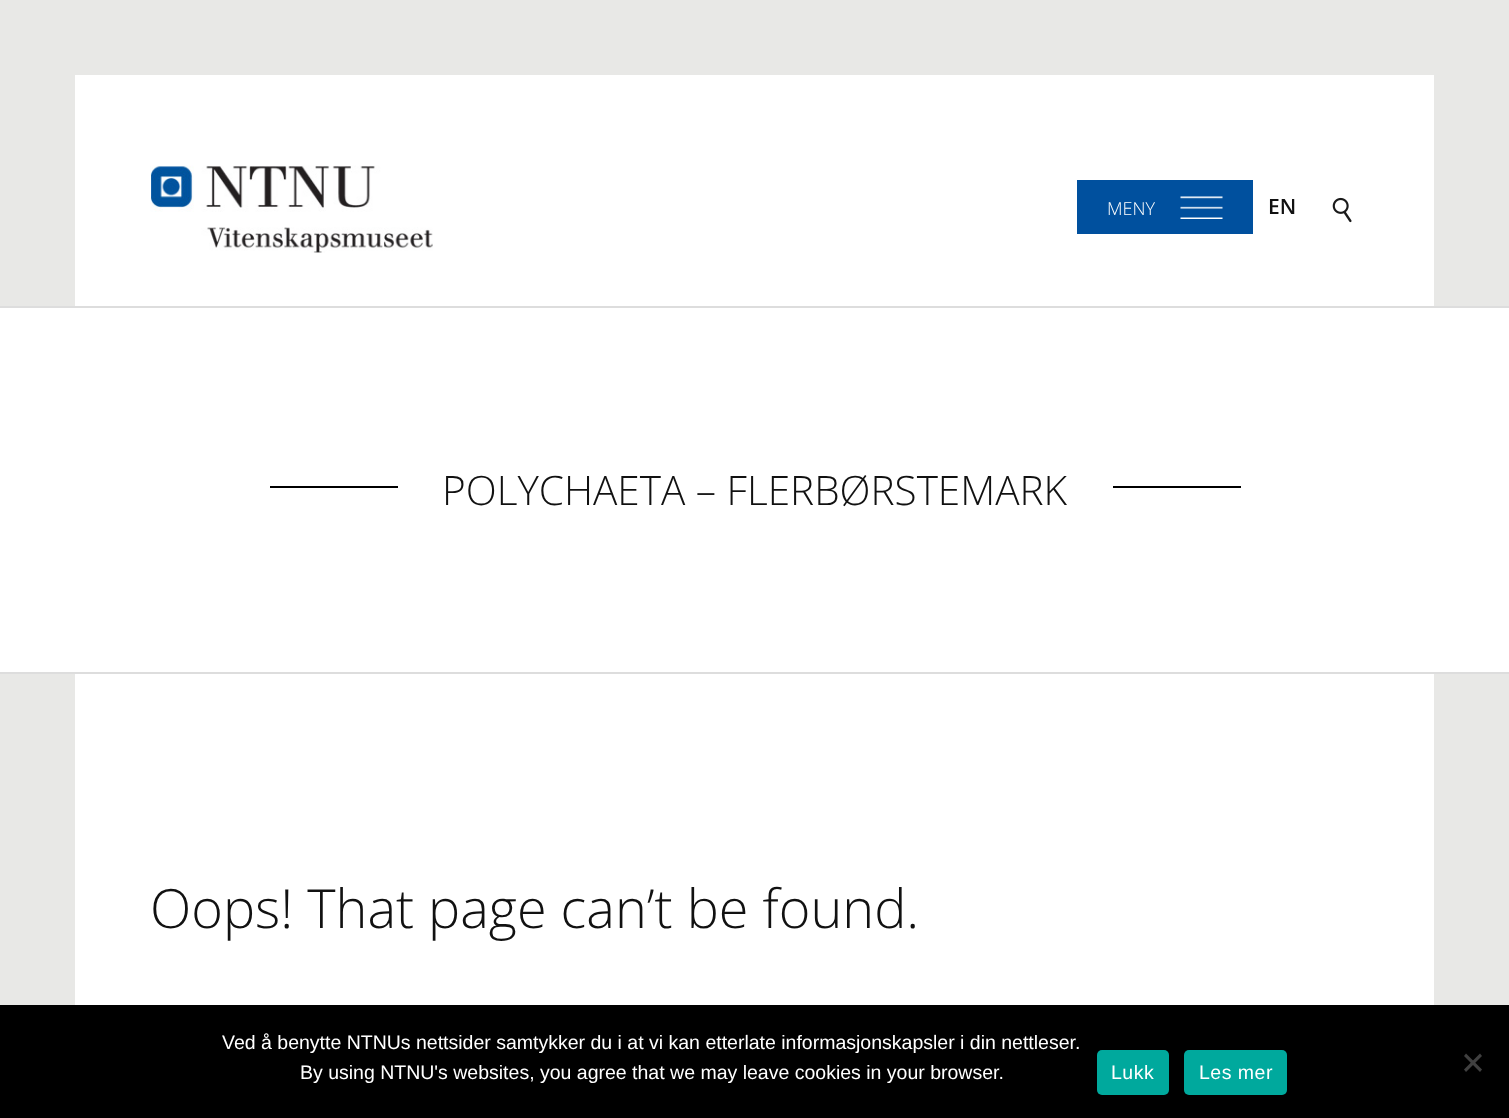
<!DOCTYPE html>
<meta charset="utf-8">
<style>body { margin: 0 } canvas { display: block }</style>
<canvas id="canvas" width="1509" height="1118"></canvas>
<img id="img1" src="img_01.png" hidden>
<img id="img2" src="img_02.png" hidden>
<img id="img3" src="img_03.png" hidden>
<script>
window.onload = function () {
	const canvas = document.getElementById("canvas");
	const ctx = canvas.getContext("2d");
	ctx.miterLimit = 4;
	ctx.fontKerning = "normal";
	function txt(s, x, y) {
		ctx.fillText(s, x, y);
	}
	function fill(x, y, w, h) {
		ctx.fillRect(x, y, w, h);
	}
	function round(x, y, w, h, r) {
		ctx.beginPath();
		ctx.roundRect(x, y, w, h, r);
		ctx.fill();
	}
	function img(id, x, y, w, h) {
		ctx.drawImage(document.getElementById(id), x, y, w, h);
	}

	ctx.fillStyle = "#E8E8E6";
	fill(0, 0, 1509, 1118);
	ctx.fillStyle = "#FFFFFF";
	fill(75, 75, 1359, 930);
	img("img1", 150, 165, 283, 88);
	ctx.fillStyle = "#00509E";
	fill(1077, 180, 176, 54);
	img("img2", 1180, 196, 43, 23);
	img("img3", 1332, 197, 20, 26);
	ctx.fillStyle = "#FFFFFF";
	ctx.beginPath();
	ctx.rect(-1, 307, 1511, 366);
	ctx.fill();
	ctx.strokeStyle = "#DDDDDD";
	ctx.lineWidth = 2;
	ctx.stroke();
	ctx.fillStyle = "#000000";
	fill(270, 486, 128, 2);
	fill(1113, 486, 128, 2);
	fill(0, 1005, 1509, 113);
	ctx.fillStyle = "#00A99D";
	round(1097, 1050, 72, 45, 5);
	round(1184, 1050, 103, 45, 5);
	ctx.fillStyle = "#404040";
	ctx.beginPath();
	ctx.moveTo(1480, 1053.5);
	ctx.lineTo(1482, 1056);
	ctx.lineTo(1466, 1072);
	ctx.lineTo(1464, 1069.5);
	ctx.closePath();
	ctx.fill();
	ctx.beginPath();
	ctx.moveTo(1464, 1056);
	ctx.lineTo(1466, 1053.5);
	ctx.lineTo(1482, 1069.5);
	ctx.lineTo(1480, 1072);
	ctx.closePath();
	ctx.fill();
	ctx.font = "300 18px Open Sans";
	ctx.fillStyle = "#FFFFFF";
	txt("MENY", 1107, 215);
	ctx.font = "600 21px Open Sans";
	ctx.fillStyle = "#111111";
	txt("EN", 1268, 214);
	ctx.font = "300 40.5px Open Sans";
	txt("POLYCHAETA – FLERBØRSTEMARK", 442, 505);
	ctx.font = "300 54px Open Sans";
	txt("Oops! That page can’t be found.", 150, 928);
	ctx.font = "19.5px Liberation Sans";
	ctx.fillStyle = "#FFFFFF";
	txt("Ved å benytte NTNUs nettsider samtykker du i at vi kan etterlate informasjonskapsler i din nettleser.", 222, 1049);
	txt("By using NTNU's websites, you agree that we may leave cookies in your browser.", 300, 1079);
	ctx.letterSpacing = "0.5px";
	txt("Lukk", 1111, 1079);
	txt("Les mer", 1199, 1079);
};
</script>
